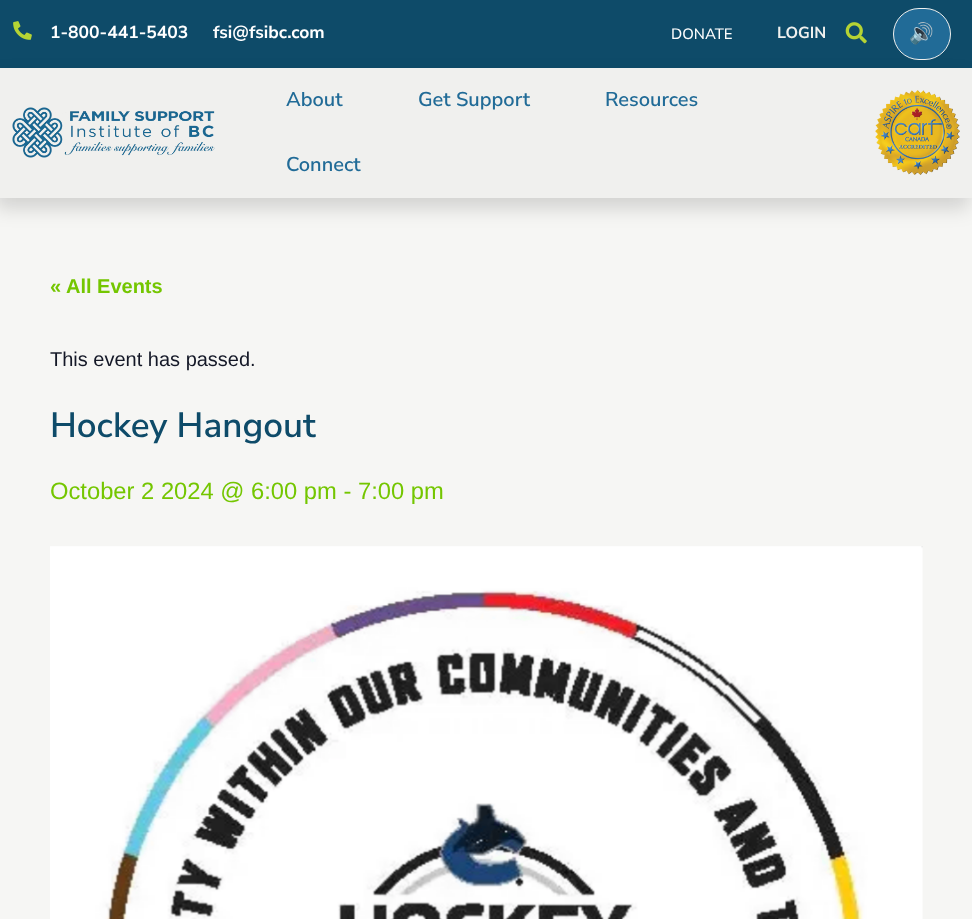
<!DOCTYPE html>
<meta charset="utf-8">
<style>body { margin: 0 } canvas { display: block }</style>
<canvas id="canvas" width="972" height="919"></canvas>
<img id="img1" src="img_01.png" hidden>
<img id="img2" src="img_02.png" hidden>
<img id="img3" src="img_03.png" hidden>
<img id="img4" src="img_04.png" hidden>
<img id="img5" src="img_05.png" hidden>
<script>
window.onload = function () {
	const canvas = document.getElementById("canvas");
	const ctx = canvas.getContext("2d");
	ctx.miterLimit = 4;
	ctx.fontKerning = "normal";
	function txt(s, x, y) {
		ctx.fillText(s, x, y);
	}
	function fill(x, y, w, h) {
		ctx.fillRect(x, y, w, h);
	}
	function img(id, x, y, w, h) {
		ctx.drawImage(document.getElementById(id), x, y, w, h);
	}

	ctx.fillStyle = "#F6F6F4";
	fill(0, 0, 972, 919);
	ctx.fillStyle = "#0E4B69";
	fill(0, 0, 972, 68);
	img("img1", 13, 21, 19, 19);
	img("img2", 845, 22, 22, 22);
	ctx.fillStyle = "#216B97";
	ctx.beginPath();
	ctx.roundRect(893.5, 8.5, 57, 51, 25.5);
	ctx.fill();
	ctx.strokeStyle = "#F0F0EE";
	ctx.stroke();
	ctx.fillStyle = "rgba(0, 0, 0, 0.15)";
	ctx.filter = "blur(9.5px)";
	ctx.beginPath();
	ctx.rect(-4, 78, 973, 130);
	ctx.fill();
	ctx.filter = "none";
	ctx.fillStyle = "#F0F0EE";
	fill(0, 68, 972, 130);
	img("img3", 12, 107, 203, 51);
	img("img4", 875, 90, 85, 85);
	img("img5", 50, 546, 873, 373);
	ctx.font = "bold 17.5px Nunito Sans";
	ctx.fillStyle = "#FFFFFF";
	txt("1-800-441-5403", 50, 38);
	txt("fsi@fsibc.com", 213, 38);
	ctx.font = "500 15px Nunito Sans";
	txt("DONATE", 671, 39);
	ctx.font = "bold 16px Nunito Sans";
	ctx.fillStyle = "#F0F0EE";
	txt("LOGIN", 777, 38);
	ctx.font = "20px Noto Color Emoji";
	ctx.fillStyle = "#FFFFFF";
	txt("🔊", 909, 40);
	ctx.font = "600 20px Nunito Sans";
	ctx.fillStyle = "#216B97";
	txt("About", 286, 106);
	txt("Get Support", 418, 106);
	txt("Resources", 605, 106);
	txt("Connect", 286, 171);
	ctx.font = "bold 20px Liberation Sans";
	ctx.fillStyle = "#74C600";
	txt("« All Events", 50, 293);
	ctx.font = "20px Liberation Sans";
	ctx.fillStyle = "#141827";
	txt("This event has passed.", 50, 366);
	ctx.font = "600 35px Nunito Sans";
	ctx.fillStyle = "#0E4B69";
	txt("Hockey Hangout", 50, 437);
	ctx.font = "23.75px Liberation Sans";
	ctx.fillStyle = "#74C600";
	txt("October 2 2024 @ 6:00 pm - 7:00 pm", 50, 499);
};
</script>
